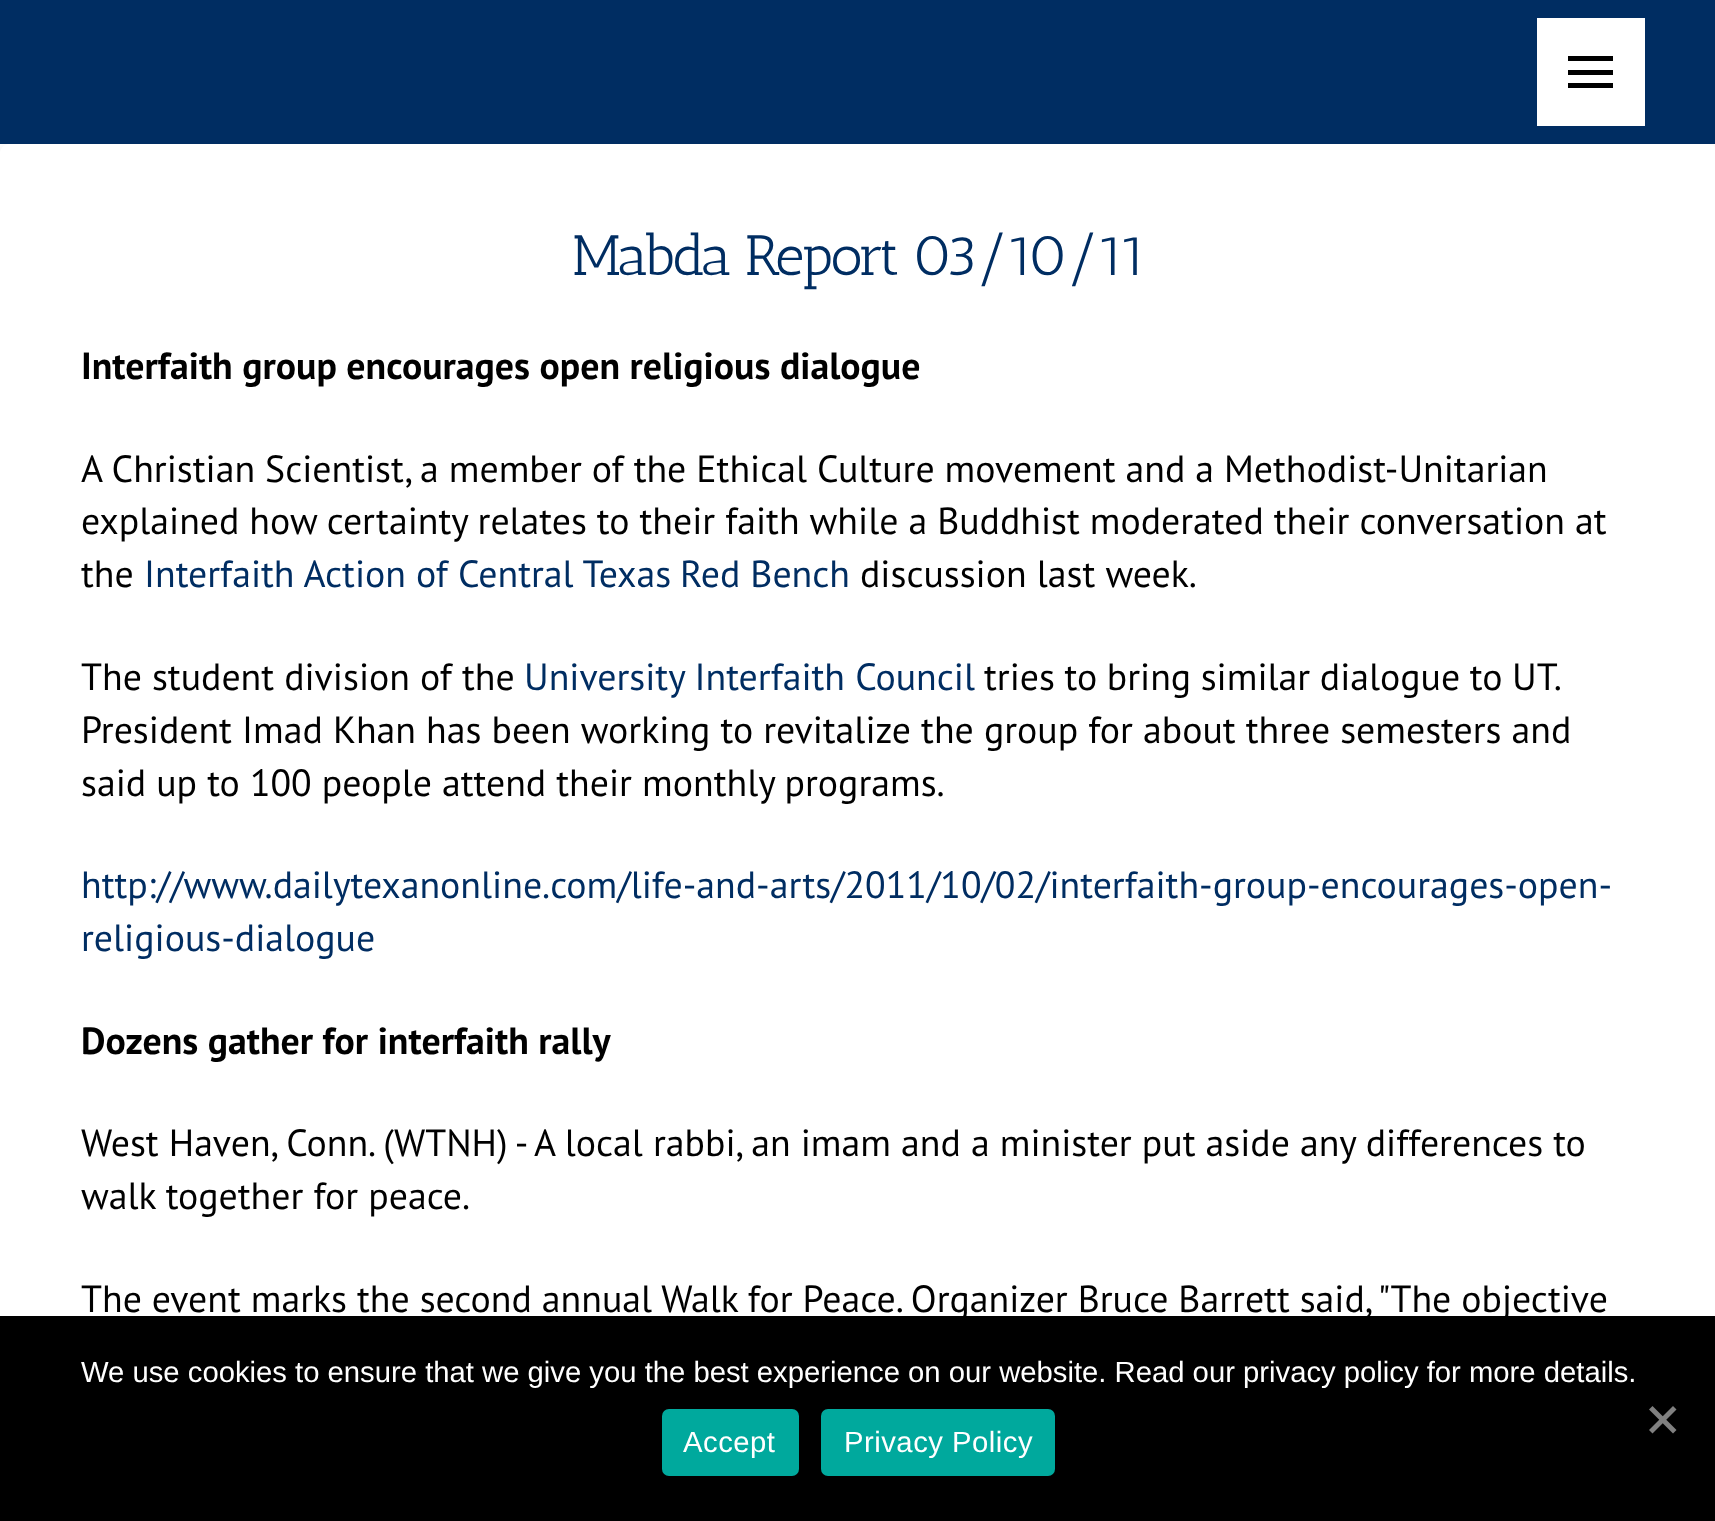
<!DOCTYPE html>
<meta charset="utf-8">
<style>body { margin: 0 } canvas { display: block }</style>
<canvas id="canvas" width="1715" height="1521"></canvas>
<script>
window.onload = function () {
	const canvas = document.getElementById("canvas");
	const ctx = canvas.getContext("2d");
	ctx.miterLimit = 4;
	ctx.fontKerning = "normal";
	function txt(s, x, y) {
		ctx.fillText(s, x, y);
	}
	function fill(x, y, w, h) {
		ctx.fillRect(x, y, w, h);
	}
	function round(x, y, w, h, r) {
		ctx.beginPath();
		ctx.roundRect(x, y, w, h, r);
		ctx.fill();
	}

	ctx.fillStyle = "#FFFFFF";
	fill(0, 0, 1715, 1521);
	ctx.fillStyle = "rgba(0, 0, 0, 0.13)";
	ctx.filter = "blur(5.5px)";
	ctx.beginPath();
	ctx.roundRect(0, 149, 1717, 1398, 9);
	ctx.fill();
	ctx.filter = "none";
	ctx.fillStyle = "#002D62";
	fill(0, 0, 1715, 144);
	ctx.fillStyle = "#FFFFFF";
	fill(1537, 18, 108, 108);
	ctx.fillStyle = "#000000";
	fill(1568, 56, 45, 5);
	fill(1568, 70, 45, 5);
	fill(1568, 83, 45, 5);
	ctx.fillStyle = "#FFFFFF";
	round(0, 144, 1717, 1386, 9);
	ctx.fillStyle = "#000000";
	fill(0, 1316, 1715, 205);
	ctx.fillStyle = "#808080";
	ctx.beginPath();
	ctx.moveTo(1673, 1406);
	ctx.lineTo(1676.5, 1409.5);
	ctx.lineTo(1652.5, 1433.5);
	ctx.lineTo(1649, 1430);
	ctx.closePath();
	ctx.fill();
	ctx.beginPath();
	ctx.moveTo(1649, 1409.5);
	ctx.lineTo(1652.5, 1406);
	ctx.lineTo(1676.5, 1430);
	ctx.lineTo(1673, 1433.5);
	ctx.closePath();
	ctx.fill();
	ctx.fillStyle = "#00A99D";
	round(662, 1409, 137, 67, 7);
	round(821, 1409, 234, 67, 7);
	ctx.letterSpacing = "-2px";
	ctx.font = "56.75px Antic Slab";
	ctx.fillStyle = "#002D62";
	txt("Mabda Report 03/10/11", 572, 275);
	ctx.letterSpacing = "0px";
	ctx.font = "bold 37.8px PT Sans";
	ctx.fillStyle = "#000000";
	txt("Interfaith group encourages open religious dialogue", 81, 379);
	ctx.wordSpacing = "-0.1px";
	ctx.font = "37.8px PT Sans";
	txt("A Christian Scientist, a member of the Ethical Culture movement and a Methodist-Unitarian", 81, 482);
	txt("explained how certainty relates to their faith while a Buddhist moderated their conversation at", 81, 534);
	ctx.wordSpacing = "0px";
	txt("the", 81, 587);
	ctx.fillStyle = "#002D62";
	txt("Interfaith Action of Central Texas", 144, 587);
	txt("Red Bench", 680, 587);
	ctx.fillStyle = "#000000";
	txt("discussion last week.", 860, 587);
	txt("The student division of the", 81, 690);
	ctx.fillStyle = "#002D62";
	txt("University Interfaith Council", 524, 690);
	ctx.wordSpacing = "-0.5px";
	ctx.fillStyle = "#000000";
	txt("tries to bring similar dialogue to UT.", 984, 690);
	ctx.wordSpacing = "0px";
	txt("President Imad Khan has been working to revitalize the group for about three semesters and", 81, 743);
	txt("said up to 100 people attend their monthly programs.", 81, 796);
	ctx.fillStyle = "#002D62";
	txt("http://www.dailytexanonline.com/life-and-arts/2011/10/02/interfaith-group-encourages-open-", 81, 898);
	txt("religious-dialogue", 81, 951);
	ctx.font = "bold 37.8px PT Sans";
	ctx.fillStyle = "#000000";
	txt("Dozens gather for interfaith rally", 81, 1054);
	ctx.font = "37.8px PT Sans";
	txt("West Haven, Conn. (WTNH) - A local rabbi, an imam and a minister put aside any differences to", 81, 1156);
	txt("walk together for peace.", 81, 1209);
	ctx.wordSpacing = "-0.1px";
	txt("The event marks the second annual Walk for Peace. Organizer Bruce Barrett said, \"The objective", 81, 1312);
	ctx.wordSpacing = "0px";
	ctx.font = "29.25px Liberation Sans";
	ctx.fillStyle = "#FFFFFF";
	txt("We use cookies to ensure that we give you the best experience on our website. Read our privacy policy for more details.", 81, 1382);
	ctx.letterSpacing = "0.5px";
	txt("Accept", 683, 1452);
	txt("Privacy Policy", 844, 1452);
};
</script>
